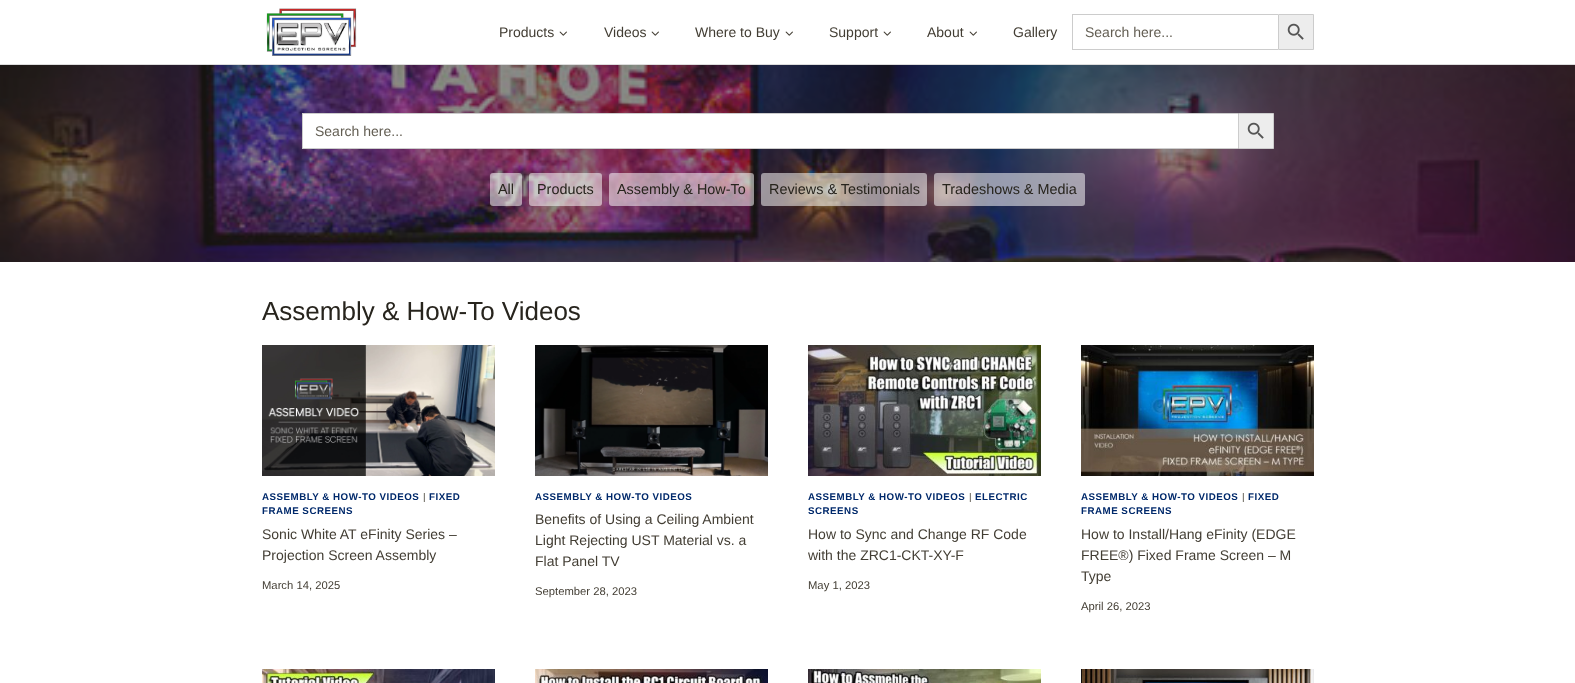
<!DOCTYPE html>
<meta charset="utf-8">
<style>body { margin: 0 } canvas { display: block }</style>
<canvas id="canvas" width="1575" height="683"></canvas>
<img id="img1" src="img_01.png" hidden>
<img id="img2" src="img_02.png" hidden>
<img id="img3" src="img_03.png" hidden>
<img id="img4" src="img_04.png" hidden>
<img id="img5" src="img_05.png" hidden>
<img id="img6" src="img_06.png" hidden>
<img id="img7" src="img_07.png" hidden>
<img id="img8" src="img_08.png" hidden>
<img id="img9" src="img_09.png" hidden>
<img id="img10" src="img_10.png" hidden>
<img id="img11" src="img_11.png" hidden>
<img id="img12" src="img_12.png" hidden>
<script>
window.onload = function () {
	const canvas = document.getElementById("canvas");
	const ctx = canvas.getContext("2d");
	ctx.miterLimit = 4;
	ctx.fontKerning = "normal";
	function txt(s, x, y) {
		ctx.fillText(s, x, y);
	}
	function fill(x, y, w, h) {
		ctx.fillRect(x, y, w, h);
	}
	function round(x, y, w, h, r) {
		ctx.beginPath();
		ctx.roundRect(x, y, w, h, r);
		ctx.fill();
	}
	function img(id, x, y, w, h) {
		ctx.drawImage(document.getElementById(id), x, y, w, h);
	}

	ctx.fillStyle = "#FFFFFF";
	fill(0, 0, 1575, 683);
	ctx.fillStyle = "#DDDDDD";
	fill(0, 64, 1575, 1);
	img("img1", 266, 8, 91, 48);
	img("img2", 559, 31, 8, 5);
	img("img2", 651, 31, 8, 5);
	img("img2", 785, 31, 8, 5);
	img("img2", 883, 31, 8, 5);
	img("img2", 969, 31, 8, 5);
	ctx.fillStyle = "#CCCCCC";
	fill(1072, 14, 206, 1);
	fill(1072, 49, 206, 1);
	fill(1072, 14, 1, 36);
	ctx.fillStyle = "#EDEDED";
	ctx.beginPath();
	ctx.rect(1278.5, 14.5, 35, 35);
	ctx.fill();
	ctx.strokeStyle = "#CCCCCC";
	ctx.stroke();
	img("img3", 1287, 23, 17, 17);
	img("img4", 0, 65, 1575, 197);
	ctx.fillStyle = "#FFFFFF";
	fill(303, 114, 935, 34);
	ctx.fillStyle = "#CCCCCC";
	fill(302, 113, 936, 1);
	fill(302, 148, 936, 1);
	fill(302, 113, 1, 36);
	ctx.fillStyle = "#EDEDED";
	ctx.beginPath();
	ctx.rect(1238.5, 113.5, 35, 35);
	ctx.fill();
	ctx.stroke();
	img("img3", 1247, 122, 17, 17);
	ctx.fillStyle = "rgba(255, 255, 255, 0.53)";
	round(490, 173, 32, 33, 3);
	round(529, 173, 73, 33, 3);
	round(609, 173, 145, 33, 3);
	round(761, 173, 166, 33, 3);
	round(934, 173, 151, 33, 3);
	img("img5", 262, 345, 233, 131);
	img("img6", 535, 345, 233, 131);
	img("img7", 808, 345, 233, 131);
	img("img8", 1081, 345, 233, 131);
	img("img9", 262, 669, 233, 14);
	img("img10", 535, 669, 233, 14);
	img("img11", 808, 669, 233, 14);
	img("img12", 1081, 669, 233, 14);
	ctx.font = "14px Liberation Sans";
	ctx.fillStyle = "#423D33";
	txt("Products", 499, 37);
	txt("Videos", 604, 37);
	txt("Where to Buy", 695, 37);
	txt("Support", 829, 37);
	txt("About", 927, 37);
	txt("Gallery", 1013, 37);
	ctx.fillStyle = "#625D52";
	txt("Search here...", 1085, 37);
	txt("Search here...", 315, 136);
	ctx.font = "14.4px Liberation Sans";
	ctx.fillStyle = "#27241D";
	txt("All", 498, 194);
	txt("Products", 537, 194);
	txt("Assembly & How-To", 617, 194);
	txt("Reviews & Testimonials", 769, 194);
	txt("Tradeshows & Media", 942, 194);
	ctx.font = "26px Liberation Sans";
	txt("Assembly & How-To Videos", 262, 320);
	ctx.letterSpacing = "0.5px";
	ctx.font = "bold 9.75px Liberation Sans";
	ctx.fillStyle = "#00296B";
	txt("ASSEMBLY & HOW-TO VIDEOS", 262, 500);
	ctx.font = "9.75px Liberation Sans";
	ctx.fillStyle = "#423D33";
	txt("|", 423, 500);
	ctx.font = "bold 9.75px Liberation Sans";
	ctx.fillStyle = "#00296B";
	txt("FIXED", 429, 500);
	txt("FRAME SCREENS", 262, 514);
	ctx.letterSpacing = "0px";
	ctx.font = "14px Liberation Sans";
	ctx.fillStyle = "#423D33";
	txt("Sonic White AT eFinity Series –", 262, 539);
	txt("Projection Screen Assembly", 262, 560);
	ctx.font = "11.25px Liberation Sans";
	txt("March 14, 2025", 262, 589);
	ctx.letterSpacing = "0.5px";
	ctx.font = "bold 9.75px Liberation Sans";
	ctx.fillStyle = "#00296B";
	txt("ASSEMBLY & HOW-TO VIDEOS", 535, 500);
	ctx.letterSpacing = "0px";
	ctx.font = "14px Liberation Sans";
	ctx.fillStyle = "#423D33";
	txt("Benefits of Using a Ceiling Ambient", 535, 524);
	txt("Light Rejecting UST Material vs. a", 535, 545);
	txt("Flat Panel TV", 535, 566);
	ctx.font = "11.25px Liberation Sans";
	txt("September 28, 2023", 535, 595);
	ctx.letterSpacing = "0.5px";
	ctx.font = "bold 9.75px Liberation Sans";
	ctx.fillStyle = "#00296B";
	txt("ASSEMBLY & HOW-TO VIDEOS", 808, 500);
	ctx.font = "9.75px Liberation Sans";
	ctx.fillStyle = "#423D33";
	txt("|", 969, 500);
	ctx.font = "bold 9.75px Liberation Sans";
	ctx.fillStyle = "#00296B";
	txt("ELECTRIC", 975, 500);
	txt("SCREENS", 808, 514);
	ctx.letterSpacing = "0px";
	ctx.font = "14px Liberation Sans";
	ctx.fillStyle = "#423D33";
	txt("How to Sync and Change RF Code", 808, 539);
	txt("with the ZRC1-CKT-XY-F", 808, 560);
	ctx.font = "11.25px Liberation Sans";
	txt("May 1, 2023", 808, 589);
	ctx.letterSpacing = "0.5px";
	ctx.font = "bold 9.75px Liberation Sans";
	ctx.fillStyle = "#00296B";
	txt("ASSEMBLY & HOW-TO VIDEOS", 1081, 500);
	ctx.font = "9.75px Liberation Sans";
	ctx.fillStyle = "#423D33";
	txt("|", 1242, 500);
	ctx.font = "bold 9.75px Liberation Sans";
	ctx.fillStyle = "#00296B";
	txt("FIXED", 1248, 500);
	txt("FRAME SCREENS", 1081, 514);
	ctx.letterSpacing = "0px";
	ctx.font = "14px Liberation Sans";
	ctx.fillStyle = "#423D33";
	txt("How to Install/Hang eFinity (EDGE", 1081, 539);
	txt("FREE®) Fixed Frame Screen – M", 1081, 560);
	txt("Type", 1081, 581);
	ctx.font = "11.25px Liberation Sans";
	txt("April 26, 2023", 1081, 610);
};
</script>
